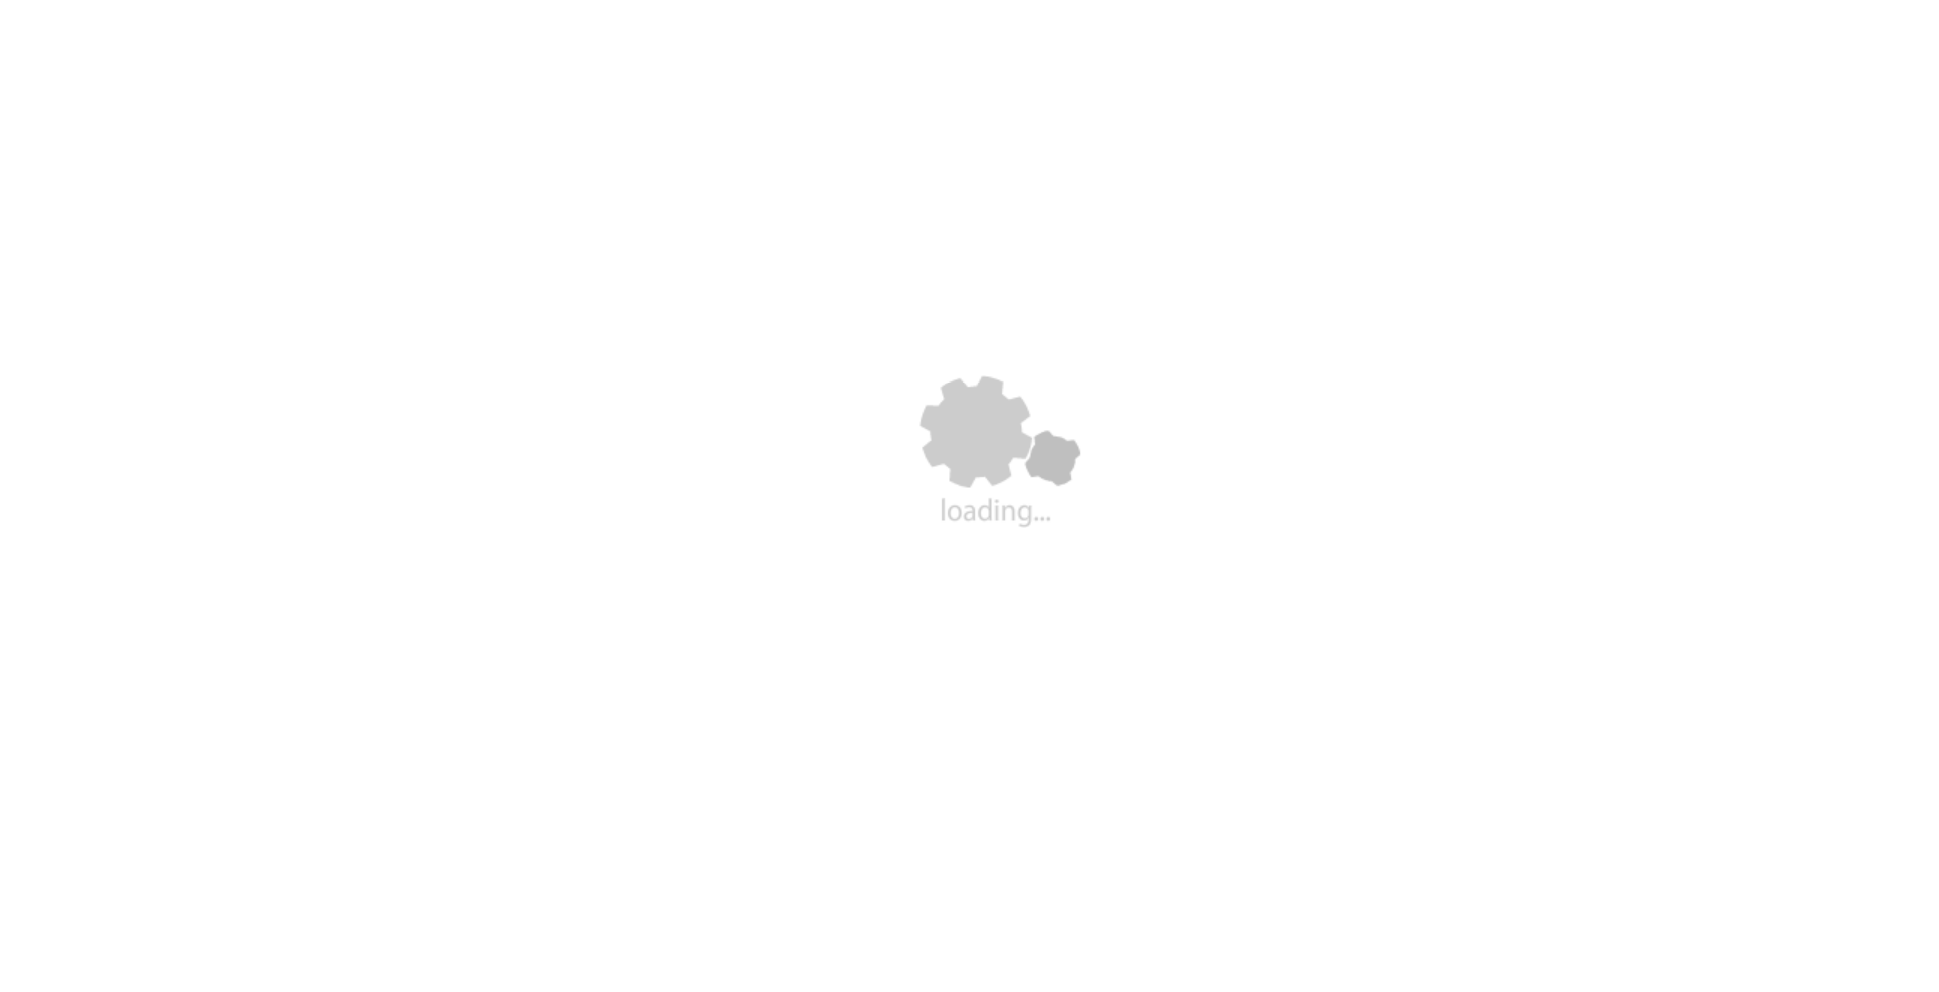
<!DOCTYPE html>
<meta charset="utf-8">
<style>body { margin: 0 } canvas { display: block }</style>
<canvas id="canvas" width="1939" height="992"></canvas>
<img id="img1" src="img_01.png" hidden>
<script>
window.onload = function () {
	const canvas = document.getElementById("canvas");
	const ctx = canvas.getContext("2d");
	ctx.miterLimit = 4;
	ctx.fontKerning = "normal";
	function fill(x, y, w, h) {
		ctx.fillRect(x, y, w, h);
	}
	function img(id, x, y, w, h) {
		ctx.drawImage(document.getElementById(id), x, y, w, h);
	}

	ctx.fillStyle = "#FFFFFF";
	fill(0, 0, 1939, 992);
	img("img1", 919, 375, 162, 153);
};
</script>
